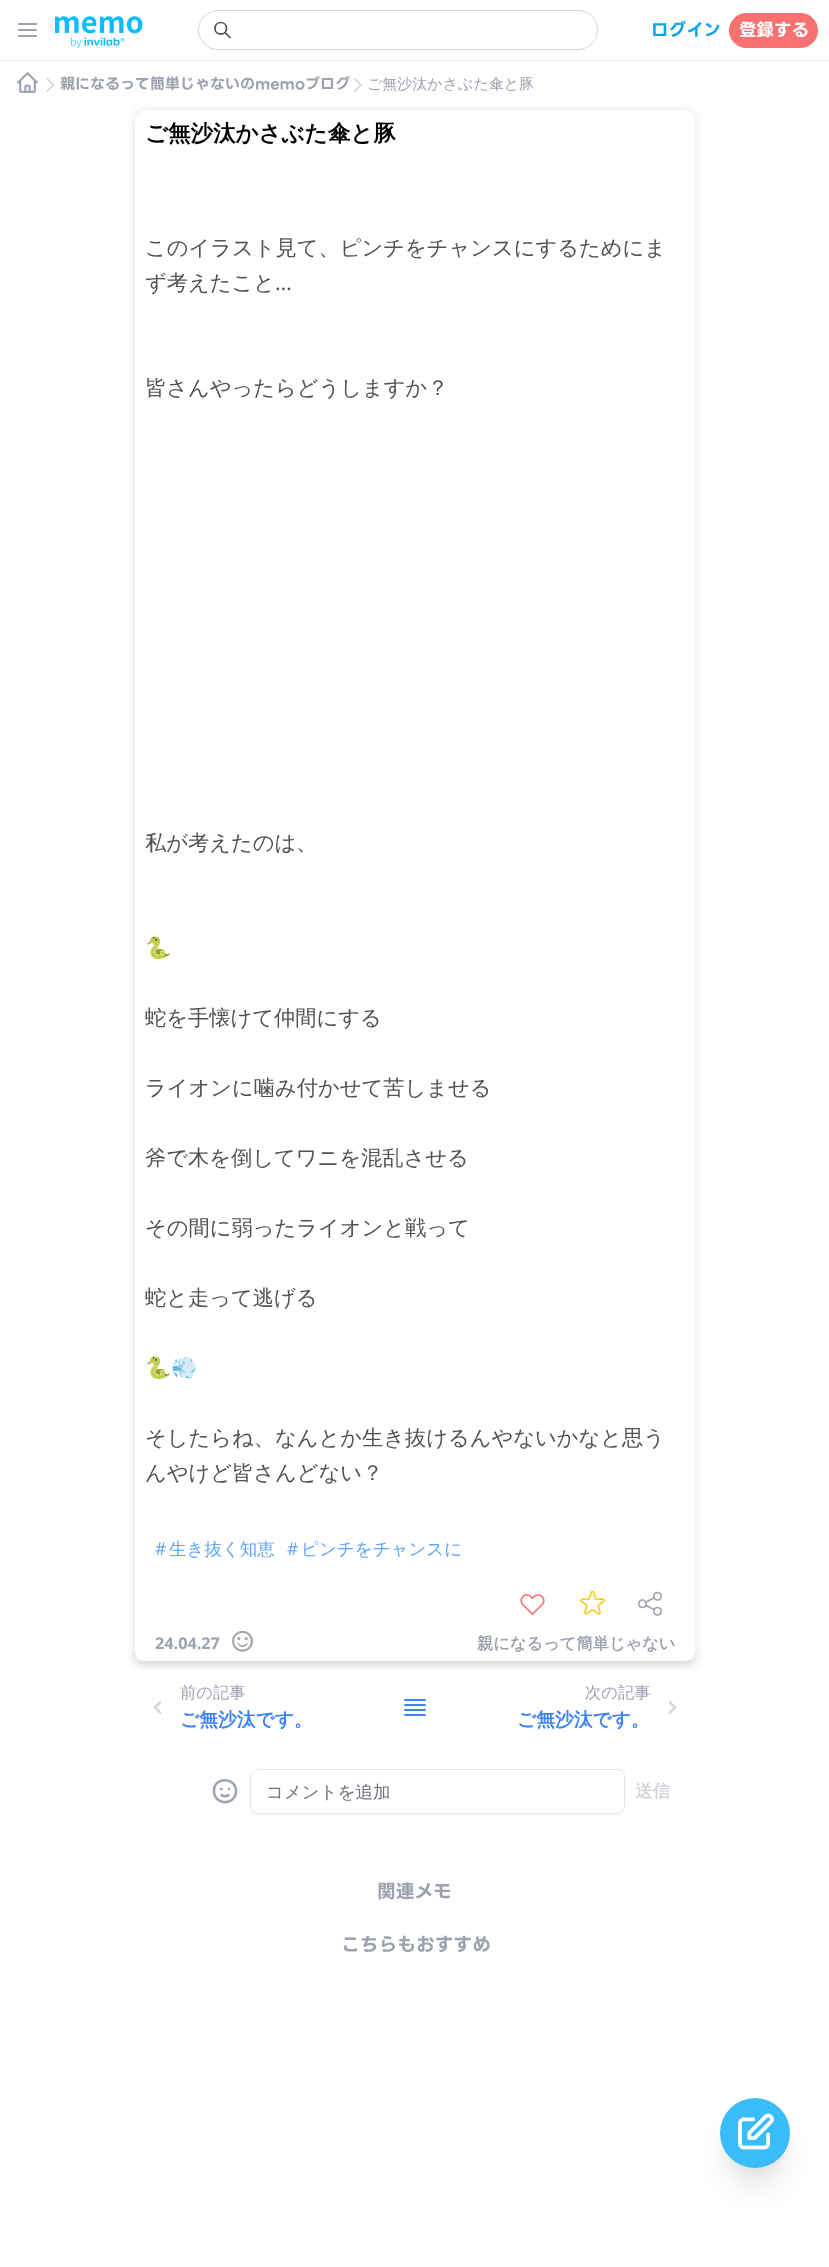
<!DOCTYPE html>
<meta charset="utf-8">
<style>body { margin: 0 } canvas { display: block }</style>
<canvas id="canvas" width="829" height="2267"></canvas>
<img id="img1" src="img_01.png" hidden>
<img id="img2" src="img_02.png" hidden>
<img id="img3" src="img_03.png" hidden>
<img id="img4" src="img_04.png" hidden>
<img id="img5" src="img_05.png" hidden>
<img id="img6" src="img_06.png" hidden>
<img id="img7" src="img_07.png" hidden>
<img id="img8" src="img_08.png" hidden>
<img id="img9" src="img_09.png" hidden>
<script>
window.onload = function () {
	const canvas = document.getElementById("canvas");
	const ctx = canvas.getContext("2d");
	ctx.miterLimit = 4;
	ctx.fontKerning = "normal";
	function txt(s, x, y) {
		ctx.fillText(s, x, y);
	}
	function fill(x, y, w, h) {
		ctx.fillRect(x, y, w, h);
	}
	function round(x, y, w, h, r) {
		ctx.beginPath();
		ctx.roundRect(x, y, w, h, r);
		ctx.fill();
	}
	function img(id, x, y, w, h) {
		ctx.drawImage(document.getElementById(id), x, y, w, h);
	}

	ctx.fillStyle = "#FFFFFF";
	fill(0, 0, 829, 2267);
	ctx.fillStyle = "#F1F2F4";
	fill(0, 60, 829, 1);
	ctx.beginPath();
	ctx.moveTo(19, 24);
	ctx.lineTo(36, 24);
	ctx.moveTo(19, 30);
	ctx.lineTo(36, 30);
	ctx.moveTo(19, 36);
	ctx.lineTo(36, 36);
	ctx.strokeStyle = "#9CA3AF";
	ctx.lineWidth = 2.1;
	ctx.lineCap = "round";
	ctx.lineJoin = "round";
	ctx.stroke();
	img("img1", 55, 16, 88, 33);
	ctx.beginPath();
	ctx.roundRect(198.5, 10.5, 399, 39, 19.5);
	ctx.strokeStyle = "#D1D5DB";
	ctx.lineWidth = 1;
	ctx.lineJoin = "miter";
	ctx.stroke();
	ctx.beginPath();
	ctx.moveTo(230, 37.5);
	ctx.lineTo(225, 32.5);
	ctx.moveTo(226.5, 28.5);
	ctx.bezierCurveTo(226.5, 36, 215, 36, 215, 28.5);
	ctx.bezierCurveTo(215, 20.5, 226.5, 20.5, 226.5, 28.5);
	ctx.closePath();
	ctx.strokeStyle = "#4D4D4D";
	ctx.lineWidth = 1.7;
	ctx.lineJoin = "round";
	ctx.stroke();
	ctx.fillStyle = "#F87171";
	round(729, 13, 89, 35, 17.5);
	img("img2", 17, 72, 21, 21);
	ctx.beginPath();
	ctx.moveTo(47.5, 79);
	ctx.lineTo(53.5, 85);
	ctx.lineTo(47.5, 91);
	ctx.strokeStyle = "#D1D5DB";
	ctx.stroke();
	ctx.beginPath();
	ctx.moveTo(355, 79);
	ctx.lineTo(361, 85);
	ctx.lineTo(355, 91);
	ctx.stroke();
	ctx.fillStyle = "rgba(0, 0, 0, 0.1)";
	ctx.filter = "blur(5px)";
	ctx.beginPath();
	ctx.roundRect(134, 1656, 562, 8, 6);
	ctx.fill();
	ctx.filter = "none";
	ctx.fillStyle = "#FFFFFF";
	ctx.beginPath();
	ctx.roundRect(135, 1656, 560, 5, [0, 0, 5, 5]);
	ctx.fill();
	ctx.fillStyle = "rgba(0, 0, 0, 0.1)";
	ctx.filter = "blur(5px)";
	ctx.beginPath();
	ctx.roundRect(134, 110, 562, 1554, 11);
	ctx.fill();
	ctx.filter = "none";
	ctx.fillStyle = "#FFFFFF";
	round(135, 110, 560, 1551, 10);
	img("img3", 520, 1594, 25, 21);
	img("img4", 580, 1590, 25, 25);
	img("img5", 638, 1591, 24, 25);
	img("img6", 232, 1630, 21, 22);
	img("img7", 153, 1701, 9, 13);
	ctx.beginPath();
	ctx.moveTo(405, 1700);
	ctx.lineTo(425, 1700);
	ctx.moveTo(405, 1705);
	ctx.lineTo(425, 1705);
	ctx.moveTo(405, 1710);
	ctx.lineTo(425, 1710);
	ctx.moveTo(405, 1715);
	ctx.lineTo(425, 1715);
	ctx.strokeStyle = "#3B82F6";
	ctx.lineWidth = 1.9;
	ctx.stroke();
	img("img8", 668, 1701, 9, 13);
	ctx.beginPath();
	ctx.moveTo(228.5, 1795);
	ctx.bezierCurveTo(226.5, 1796.5, 223.5, 1796.5, 221.5, 1795);
	ctx.moveTo(221, 1789);
	ctx.lineTo(221.5, 1789);
	ctx.moveTo(229, 1789);
	ctx.lineTo(229, 1789);
	ctx.moveTo(236, 1791);
	ctx.bezierCurveTo(236, 1806, 214, 1806, 214, 1791);
	ctx.bezierCurveTo(213.5, 1776.5, 236, 1776.5, 236, 1791);
	ctx.closePath();
	ctx.strokeStyle = "#9CA3AF";
	ctx.lineWidth = 2.5;
	ctx.stroke();
	ctx.fillStyle = "rgba(0, 0, 0, 0.05)";
	ctx.filter = "blur(1px)";
	ctx.beginPath();
	ctx.roundRect(250, 1770, 375, 45, 8);
	ctx.fill();
	ctx.filter = "none";
	ctx.fillStyle = "#FFFFFF";
	ctx.beginPath();
	ctx.roundRect(250.5, 1769.5, 374, 44, 7.5);
	ctx.fill();
	ctx.strokeStyle = "#E5E7EB";
	ctx.lineWidth = 1;
	ctx.lineJoin = "miter";
	ctx.stroke();
	ctx.fillStyle = "rgba(0, 0, 0, 0.04)";
	ctx.filter = "blur(6px)";
	ctx.beginPath();
	ctx.roundRect(726, 2116, 58, 58, 29);
	ctx.fill();
	ctx.filter = "none";
	ctx.fillStyle = "rgba(0, 0, 0, 0.1)";
	ctx.filter = "blur(15.5px)";
	ctx.beginPath();
	ctx.roundRect(726, 2129, 58, 57, 28.5);
	ctx.fill();
	ctx.filter = "none";
	ctx.fillStyle = "#38BDF8";
	ctx.beginPath();
	ctx.arc(755, 2133, 35, 0, Math.PI * 2);
	ctx.fill();
	img("img9", 738, 2113, 36, 37);
	ctx.font = "bold 17.5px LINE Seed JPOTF";
	ctx.fillStyle = "#0EA5E9";
	txt("ログイン", 651, 36);
	ctx.fillStyle = "#FFFFFF";
	txt("登録する", 739, 36);
	ctx.font = "bold 15px LINE Seed JPOTF";
	ctx.fillStyle = "#9CA3AF";
	txt("親になるって簡単じゃないのmemoブログ", 60, 89);
	ctx.font = "500 15px WenQuanYi Zen Hei";
	txt("ご無沙汰かさぶた傘と豚", 367, 89);
	ctx.font = "bold 22.5px WenQuanYi Zen Hei";
	ctx.fillStyle = "#000000";
	txt("ご無沙汰かさぶた傘と豚", 145, 141);
	ctx.font = "500 21.25px WenQuanYi Zen Hei";
	ctx.fillStyle = "#525252";
	txt("このイラスト見て、ピンチをチャンスにするためにま", 145, 255);
	txt("ず考えたこと", 145, 290);
	ctx.font = "21.25px Noto Sans";
	txt("…", 275, 290);
	ctx.font = "500 21.25px WenQuanYi Zen Hei";
	txt("皆さんやったらどうしますか？", 145, 395);
	txt("私が考えたのは、", 145, 850);
	ctx.font = "21.25px Noto Color Emoji";
	txt("🐍", 145, 955);
	ctx.font = "500 21.25px WenQuanYi Zen Hei";
	txt("蛇を手懐けて仲間にする", 145, 1025);
	txt("ライオンに噛み付かせて苦しませる", 145, 1095);
	txt("斧で木を倒してワニを混乱させる", 145, 1165);
	txt("その間に弱ったライオンと戦って", 145, 1235);
	txt("蛇と走って逃げる", 145, 1305);
	ctx.font = "21.25px Noto Color Emoji";
	txt("🐍💨", 145, 1375);
	ctx.font = "500 21.25px WenQuanYi Zen Hei";
	txt("そしたらね、なんとか生き抜けるんやないかなと思う", 145, 1445);
	txt("んやけど皆さんどない？", 145, 1480);
	ctx.font = "17.5px Noto Sans";
	ctx.fillStyle = "#60A5FA";
	txt("#", 155, 1555);
	ctx.font = "500 17.5px WenQuanYi Zen Hei";
	txt("生き抜く知恵", 169, 1555);
	ctx.font = "17.5px Noto Sans";
	txt("#", 287, 1555);
	ctx.font = "500 17.5px WenQuanYi Zen Hei";
	txt("ピンチをチャンスに", 301, 1555);
	ctx.font = "bold 16.25px Noto Sans";
	ctx.fillStyle = "#9CA3AF";
	txt("24.04.27", 155, 1649);
	ctx.font = "bold 16.25px WenQuanYi Zen Hei";
	txt("親になるって簡単じゃない", 477, 1649);
	ctx.font = "500 16.25px WenQuanYi Zen Hei";
	txt("前の記事", 180, 1698);
	ctx.font = "bold 18.75px WenQuanYi Zen Hei";
	ctx.fillStyle = "#3B82F6";
	txt("ご無沙汰です。", 180, 1726);
	ctx.font = "500 16.25px WenQuanYi Zen Hei";
	ctx.fillStyle = "#9CA3AF";
	txt("次の記事", 585, 1698);
	ctx.font = "bold 18.75px WenQuanYi Zen Hei";
	ctx.fillStyle = "#3B82F6";
	txt("ご無沙汰です。", 517, 1726);
	ctx.font = "500 17.5px WenQuanYi Zen Hei";
	ctx.fillStyle = "#6B7280";
	txt("コメントを追加", 266, 1798);
	ctx.font = "bold 17.5px WenQuanYi Zen Hei";
	ctx.fillStyle = "#D1D5DB";
	txt("送信", 635, 1797);
	ctx.font = "bold 18.75px LINE Seed JPOTF";
	ctx.fillStyle = "#9CA3AF";
	txt("関連メモ", 377, 1898);
	txt("こちらもおすすめ", 341, 1951);
};
</script>
